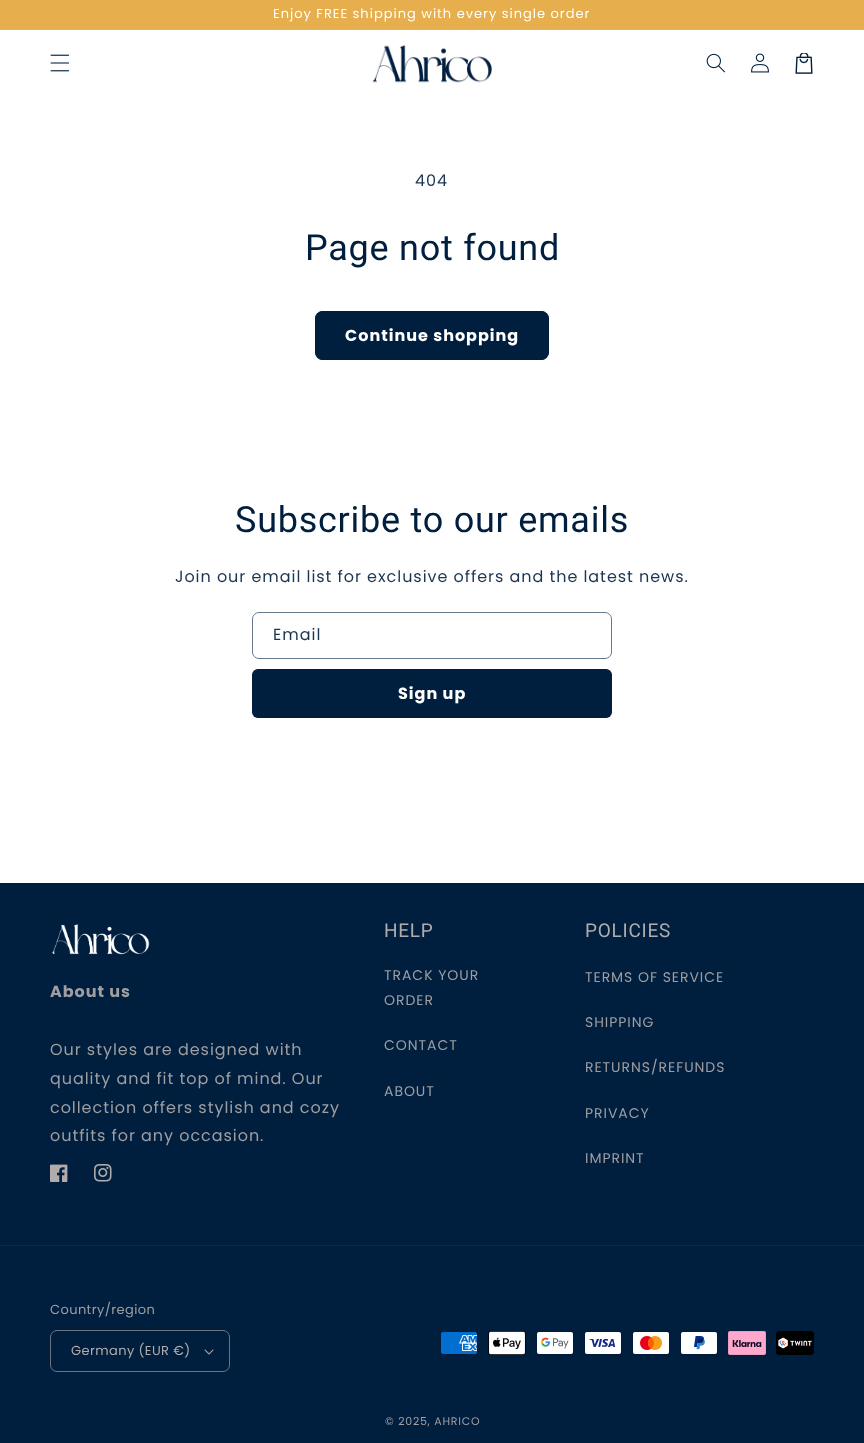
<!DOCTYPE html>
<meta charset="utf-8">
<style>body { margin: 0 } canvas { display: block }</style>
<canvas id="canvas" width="864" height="1443"></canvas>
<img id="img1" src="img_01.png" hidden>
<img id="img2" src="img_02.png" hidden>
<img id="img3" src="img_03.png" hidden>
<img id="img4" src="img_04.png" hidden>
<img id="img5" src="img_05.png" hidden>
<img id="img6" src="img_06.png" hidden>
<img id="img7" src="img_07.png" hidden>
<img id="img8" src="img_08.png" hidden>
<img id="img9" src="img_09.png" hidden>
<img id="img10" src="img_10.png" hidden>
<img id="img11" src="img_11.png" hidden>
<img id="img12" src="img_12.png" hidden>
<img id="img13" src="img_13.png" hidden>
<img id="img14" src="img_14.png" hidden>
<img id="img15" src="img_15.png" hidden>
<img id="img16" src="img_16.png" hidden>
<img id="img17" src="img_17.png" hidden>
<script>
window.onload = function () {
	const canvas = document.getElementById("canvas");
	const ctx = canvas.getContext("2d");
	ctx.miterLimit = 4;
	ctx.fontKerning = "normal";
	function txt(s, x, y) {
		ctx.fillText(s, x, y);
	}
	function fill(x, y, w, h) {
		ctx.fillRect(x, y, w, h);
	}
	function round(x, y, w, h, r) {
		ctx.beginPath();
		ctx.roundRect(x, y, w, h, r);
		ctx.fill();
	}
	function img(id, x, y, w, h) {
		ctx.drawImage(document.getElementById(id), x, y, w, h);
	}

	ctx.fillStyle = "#FFFFFF";
	fill(0, 0, 864, 1443);
	ctx.fillStyle = "#E6AE4C";
	fill(0, 0, 864, 29);
	ctx.fillStyle = "#E8B45A";
	fill(0, 29, 864, 1);
	img("img1", 50, 54, 20, 18);
	img("img2", 372, 44, 120, 39);
	img("img3", 706, 53, 19, 20);
	img("img4", 751, 53, 18, 20);
	img("img5", 795, 53, 18, 21);
	ctx.fillStyle = "#001F3F";
	round(315, 311, 234, 49, 8);
	ctx.beginPath();
	ctx.roundRect(316, 312, 232, 47, 7);
	ctx.strokeStyle = "#001F3F";
	ctx.lineWidth = 2;
	ctx.stroke();
	ctx.beginPath();
	ctx.roundRect(252.5, 612.5, 359, 46, 6.5);
	ctx.strokeStyle = "#66798C";
	ctx.lineWidth = 1;
	ctx.stroke();
	ctx.beginPath();
	ctx.roundRect(253, 670, 358, 47, 7);
	ctx.strokeStyle = "#001F3F";
	ctx.lineWidth = 2;
	ctx.stroke();
	round(252, 669, 360, 49, 6);
	fill(0, 883, 864, 560);
	img("img6", 52, 924, 98, 31);
	img("img7", 50, 1164, 18, 18);
	img("img8", 94, 1164, 18, 18);
	ctx.fillStyle = "#0E2A48";
	fill(0, 1245, 864, 1);
	img("img9", 204, 1349, 10, 6);
	ctx.beginPath();
	ctx.roundRect(50.5, 1330.5, 179, 41, 6.5);
	ctx.strokeStyle = "#6A7480";
	ctx.lineWidth = 1;
	ctx.stroke();
	img("img10", 440, 1331, 38, 24);
	img("img11", 488, 1331, 38, 24);
	img("img12", 536, 1331, 38, 24);
	img("img13", 584, 1331, 38, 24);
	img("img14", 632, 1331, 38, 24);
	img("img15", 680, 1331, 38, 24);
	img("img16", 728, 1331, 38, 24);
	img("img17", 776, 1331, 38, 24);
	ctx.letterSpacing = "1px";
	ctx.font = "13px Poppins";
	ctx.fillStyle = "#FFFFFF";
	txt("Enjoy FREE shipping with every single order", 273, 18);
	ctx.letterSpacing = "0.95px";
	ctx.font = "16px Poppins";
	ctx.fillStyle = "#1A3552";
	txt("404", 415, 186);
	ctx.letterSpacing = "0.75px";
	ctx.font = "36px Roboto";
	ctx.fillStyle = "#001F3F";
	txt("Page not found", 305, 260);
	ctx.letterSpacing = "1px";
	ctx.font = "bold 16px Poppins";
	ctx.fillStyle = "#FFFFFF";
	txt("Continue shopping", 345, 341);
	ctx.letterSpacing = "0.75px";
	ctx.font = "36px Roboto";
	ctx.fillStyle = "#001F3F";
	txt("Subscribe to our emails", 235, 532);
	ctx.letterSpacing = "0.95px";
	ctx.font = "16px Poppins";
	ctx.fillStyle = "#1A3552";
	txt("Join our email list for exclusive offers and the latest news.", 175, 582);
	ctx.letterSpacing = "1px";
	txt("Email", 273, 640);
	ctx.font = "bold 16px Poppins";
	ctx.fillStyle = "#FFFFFF";
	txt("Sign up", 398, 699);
	ctx.letterSpacing = "0.95px";
	ctx.fillStyle = "#9F9EA1";
	txt("About us", 50, 997);
	ctx.font = "16px Poppins";
	txt("Our styles are designed with", 50, 1055);
	txt("quality and fit top of mind. Our", 50, 1084);
	txt("collection offers stylish and cozy", 50, 1113);
	txt("outfits for any occasion.", 50, 1141);
	ctx.letterSpacing = "0.75px";
	ctx.font = "19px Roboto";
	ctx.fillStyle = "#B1ACAC";
	txt("HELP", 384, 937);
	ctx.letterSpacing = "0.95px";
	ctx.font = "14px Poppins";
	ctx.fillStyle = "#9F9EA1";
	txt("TRACK YOUR", 384, 980);
	txt("ORDER", 384, 1005);
	txt("CONTACT", 384, 1050);
	txt("ABOUT", 384, 1096);
	ctx.letterSpacing = "0.75px";
	ctx.font = "19px Roboto";
	ctx.fillStyle = "#B1ACAC";
	txt("POLICIES", 585, 937);
	ctx.letterSpacing = "0.95px";
	ctx.font = "14px Poppins";
	ctx.fillStyle = "#9F9EA1";
	txt("TERMS OF SERVICE", 585, 982);
	txt("SHIPPING", 585, 1027);
	txt("RETURNS/REFUNDS", 585, 1072);
	txt("PRIVACY", 585, 1118);
	txt("IMPRINT", 585, 1163);
	ctx.letterSpacing = "0.4px";
	ctx.font = "13px Poppins";
	txt("Country/region", 50, 1314);
	ctx.fillStyle = "#B1ACAC";
	txt("Germany (EUR €)", 71, 1355);
	ctx.letterSpacing = "0.75px";
	ctx.font = "11px Poppins";
	ctx.fillStyle = "#9F9EA1";
	txt("© 2025, AHRICO", 385, 1425);
};
</script>
